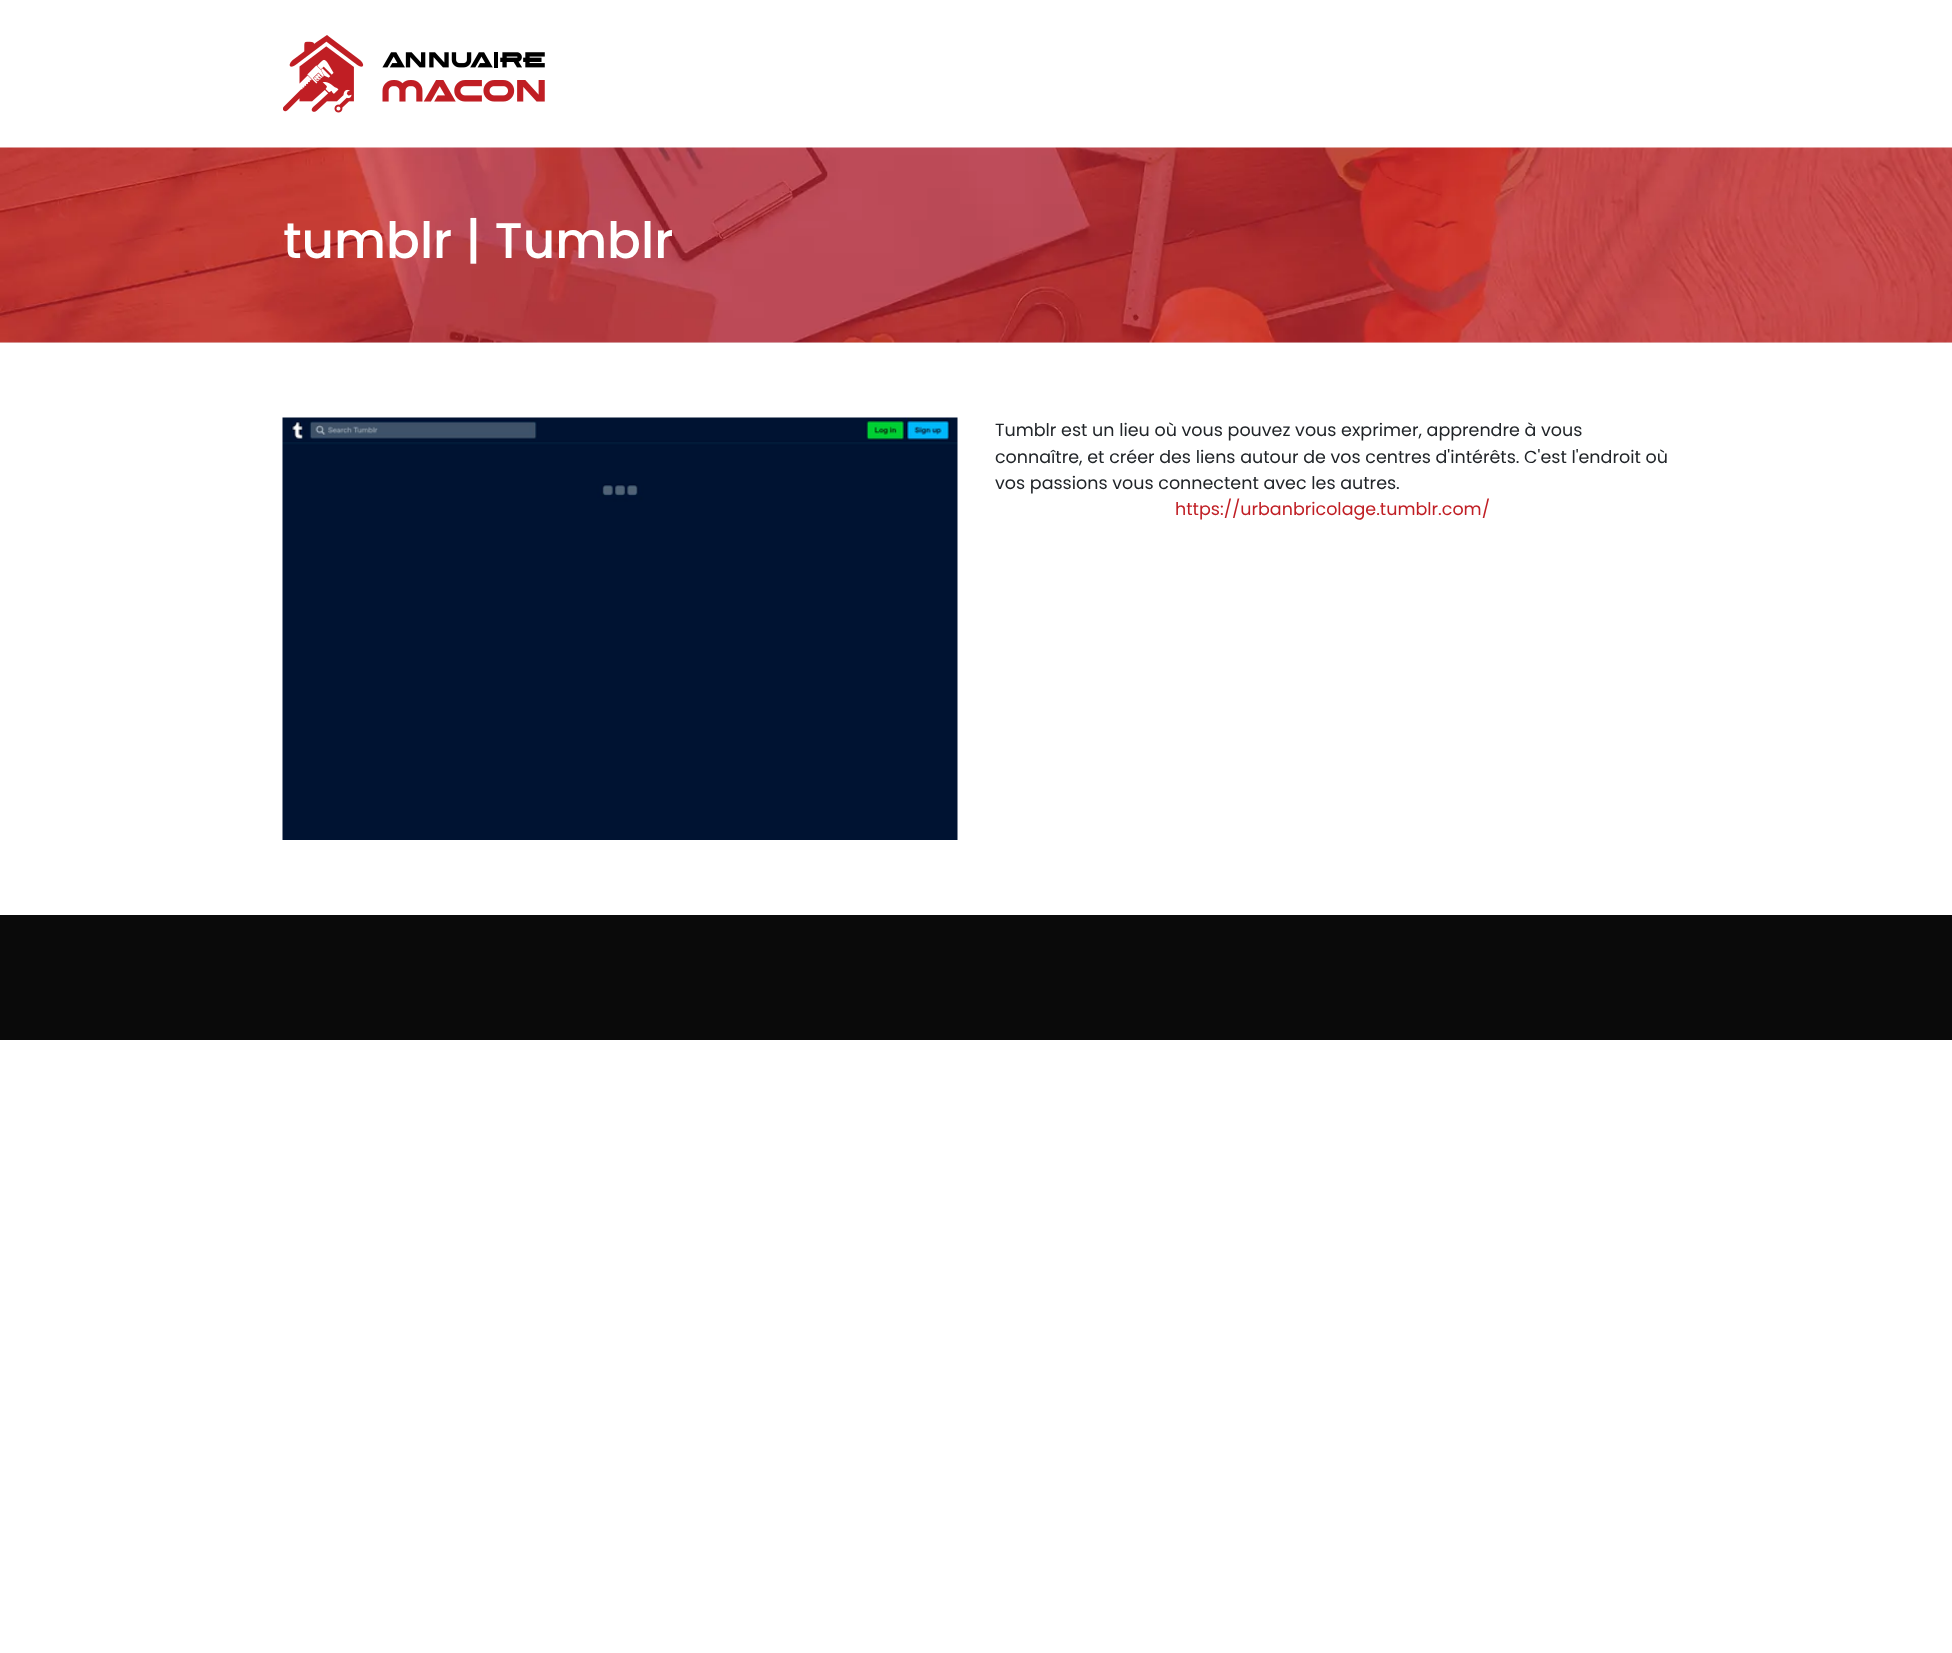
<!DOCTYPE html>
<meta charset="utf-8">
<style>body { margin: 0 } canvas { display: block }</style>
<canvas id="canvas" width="1952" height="1653"></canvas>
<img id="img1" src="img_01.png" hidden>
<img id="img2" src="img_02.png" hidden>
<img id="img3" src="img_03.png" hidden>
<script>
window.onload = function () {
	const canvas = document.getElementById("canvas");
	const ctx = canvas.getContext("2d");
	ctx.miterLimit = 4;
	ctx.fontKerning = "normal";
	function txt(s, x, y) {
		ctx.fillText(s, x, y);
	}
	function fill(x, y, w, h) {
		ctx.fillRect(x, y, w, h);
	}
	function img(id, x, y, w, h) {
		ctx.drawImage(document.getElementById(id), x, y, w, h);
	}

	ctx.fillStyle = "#FFFFFF";
	fill(0, 0, 1952, 1653);
	ctx.save();
	ctx.beginPath();
	ctx.moveTo(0, 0);
	ctx.lineTo(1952, 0);
	ctx.lineTo(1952, 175);
	ctx.lineTo(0, 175);
	ctx.closePath();
	ctx.moveTo(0, 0);
	ctx.lineTo(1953, 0);
	ctx.lineTo(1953, 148);
	ctx.lineTo(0, 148);
	ctx.closePath();
	ctx.clip("evenodd");
	ctx.fillStyle = "rgba(0, 0, 0, 0.1)";
	ctx.filter = "blur(8px)";
	ctx.beginPath();
	ctx.rect(0, 3, 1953, 147);
	ctx.fill();
	ctx.filter = "none";
	ctx.restore();
	img("img1", 283, 35, 262, 78);
	ctx.fillStyle = "#EEEEEE";
	fill(0, 342, 1952, 1);
	img("img2", 0, 147, 1952, 196);
	img("img3", 282, 417, 676, 423);
	ctx.fillStyle = "#0A0A0A";
	fill(0, 915, 1952, 125);
	ctx.font = "500 50px Poppins";
	ctx.fillStyle = "#FFFFFF";
	txt("tumblr | Tumblr", 283, 258);
	ctx.font = "17.5px Poppins";
	ctx.fillStyle = "#212529";
	txt("Tumblr est un lieu où vous pouvez vous exprimer, apprendre à vous", 995, 436);
	txt("connaître, et créer des liens autour de vos centres d'intérêts. C'est l'endroit où", 995, 463);
	txt("vos passions vous connectent avec les autres.", 995, 489);
	ctx.fillStyle = "#C01E24";
	txt("https://urbanbricolage.tumblr.com/", 1175, 515);
};
</script>
